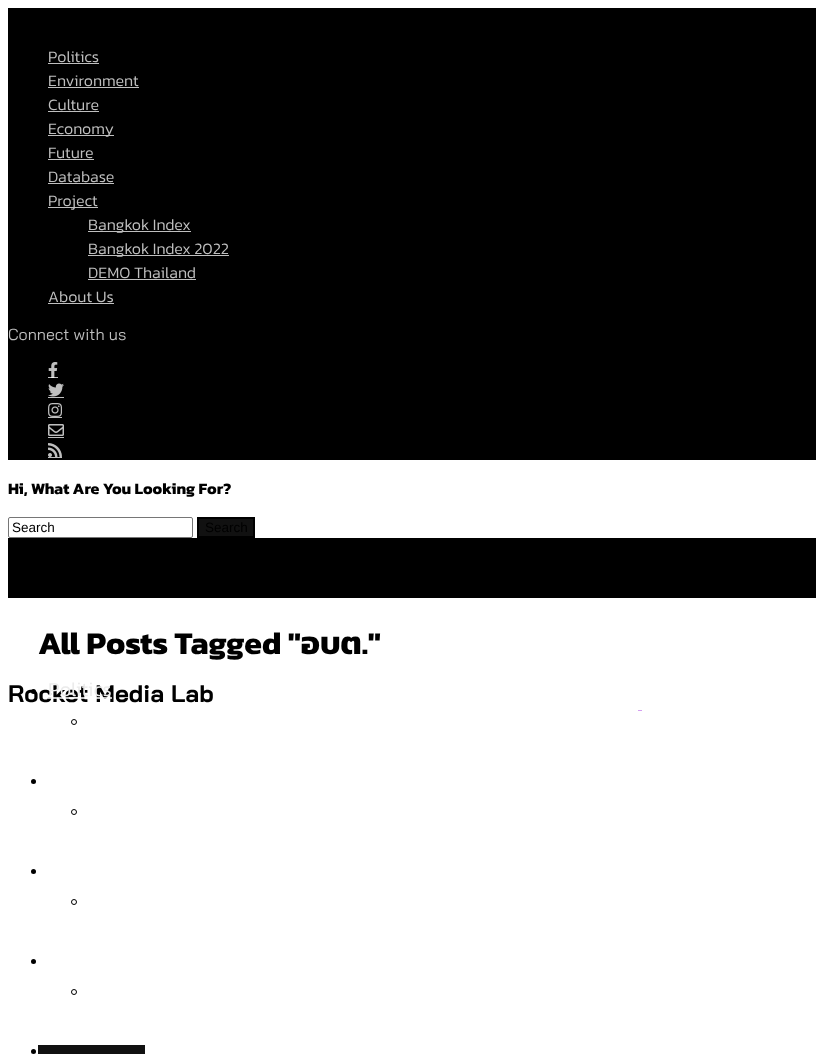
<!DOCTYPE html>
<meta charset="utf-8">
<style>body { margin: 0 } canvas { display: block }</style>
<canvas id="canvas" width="824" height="1054"></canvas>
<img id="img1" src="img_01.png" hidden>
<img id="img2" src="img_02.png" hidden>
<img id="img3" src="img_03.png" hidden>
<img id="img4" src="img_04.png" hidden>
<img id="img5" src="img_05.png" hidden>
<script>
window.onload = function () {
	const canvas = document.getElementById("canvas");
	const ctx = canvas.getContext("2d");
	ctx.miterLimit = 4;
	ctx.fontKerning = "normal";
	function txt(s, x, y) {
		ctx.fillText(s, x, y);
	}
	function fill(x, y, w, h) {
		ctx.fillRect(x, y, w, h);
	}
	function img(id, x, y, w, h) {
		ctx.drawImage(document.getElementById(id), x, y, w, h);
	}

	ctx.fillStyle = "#FFFFFF";
	fill(0, 0, 824, 1054);
	ctx.fillStyle = "#000000";
	fill(8, 8, 808, 452);
	ctx.fillStyle = "#BFBFBF";
	fill(48, 63, 51, 1);
	fill(48, 87, 91, 1);
	fill(48, 111, 51, 1);
	fill(48, 135, 66, 1);
	fill(48, 159, 46, 1);
	fill(48, 183, 66, 1);
	fill(48, 207, 50, 1);
	fill(88, 231, 103, 1);
	fill(88, 255, 141, 1);
	fill(88, 279, 108, 1);
	fill(48, 303, 66, 1);
	fill(48, 377, 10, 1);
	img("img1", 48, 362, 10, 16);
	img("img2", 48, 383, 16, 14);
	fill(48, 397, 16, 1);
	img("img3", 48, 403, 14, 14);
	fill(48, 417, 14, 1);
	img("img4", 48, 424, 16, 12);
	fill(48, 437, 16, 1);
	img("img5", 48, 443, 14, 14);
	fill(48, 457, 14, 1);
	ctx.beginPath();
	ctx.roundRect(8.5, 517.5, 184, 20, 1.5);
	ctx.strokeStyle = "#767676";
	ctx.stroke();
	ctx.fillStyle = "#111111";
	ctx.beginPath();
	ctx.rect(198, 518, 56, 19);
	ctx.fill();
	ctx.strokeStyle = "#000000";
	ctx.lineWidth = 2;
	ctx.stroke();
	ctx.fillStyle = "#D49FF1";
	fill(638, 710, 4, 1);
	ctx.fillStyle = "#111111";
	fill(38, 1045, 107, 9);
	ctx.fillStyle = "#000000";
	fill(8, 538, 808, 60);
	ctx.beginPath();
	ctx.arc(33.5, 691.5, 2.5, 0, Math.PI * 2);
	ctx.fill();
	ctx.beginPath();
	ctx.arc(74, 722, 2.5, 0, Math.PI * 2);
	ctx.lineWidth = 1;
	ctx.stroke();
	ctx.beginPath();
	ctx.arc(33.5, 781.5, 2.5, 0, Math.PI * 2);
	ctx.fill();
	ctx.beginPath();
	ctx.arc(74, 812, 2.5, 0, Math.PI * 2);
	ctx.stroke();
	ctx.beginPath();
	ctx.arc(33.5, 871.5, 2.5, 0, Math.PI * 2);
	ctx.fill();
	ctx.beginPath();
	ctx.arc(74, 902, 2.5, 0, Math.PI * 2);
	ctx.stroke();
	ctx.beginPath();
	ctx.arc(33.5, 961.5, 2.5, 0, Math.PI * 2);
	ctx.fill();
	ctx.beginPath();
	ctx.arc(74, 992, 2.5, 0, Math.PI * 2);
	ctx.stroke();
	ctx.beginPath();
	ctx.arc(33.5, 1051.5, 2.5, 0, Math.PI * 2);
	ctx.fill();
	ctx.font = "300 16px Kanit";
	ctx.fillStyle = "#BFBFBF";
	txt("Politics", 48, 62);
	txt("Environment", 48, 86);
	txt("Culture", 48, 110);
	txt("Economy", 48, 134);
	txt("Future", 48, 158);
	txt("Database", 48, 182);
	txt("Project", 48, 206);
	txt("Bangkok Index", 88, 230);
	txt("Bangkok Index 2022", 88, 254);
	txt("DEMO Thailand", 88, 278);
	txt("About Us", 48, 302);
	ctx.font = "16px Bai Jamjuree";
	txt("Connect with us", 8, 340);
	ctx.font = "bold 16px Kanit";
	ctx.fillStyle = "#000000";
	txt("Hi, What Are You Looking For?", 8, 494);
	ctx.font = "13.5px Liberation Sans";
	txt("Search", 12, 532);
	txt("Search", 205, 532);
	ctx.font = "bold 32px Kanit";
	txt("All Posts Tagged \"อบต.\"", 38, 654);
	ctx.font = "bold 24px Bai Jamjuree";
	txt("Rocket Media Lab", 8, 702);
	ctx.font = "300 20px Kanit";
	ctx.fillStyle = "#EBEBEB";
	txt("Politics", 48, 696);
	ctx.fillStyle = "rgba(255, 255, 255, 0.75)";
	fill(48, 697, 64, 2);
};
</script>
